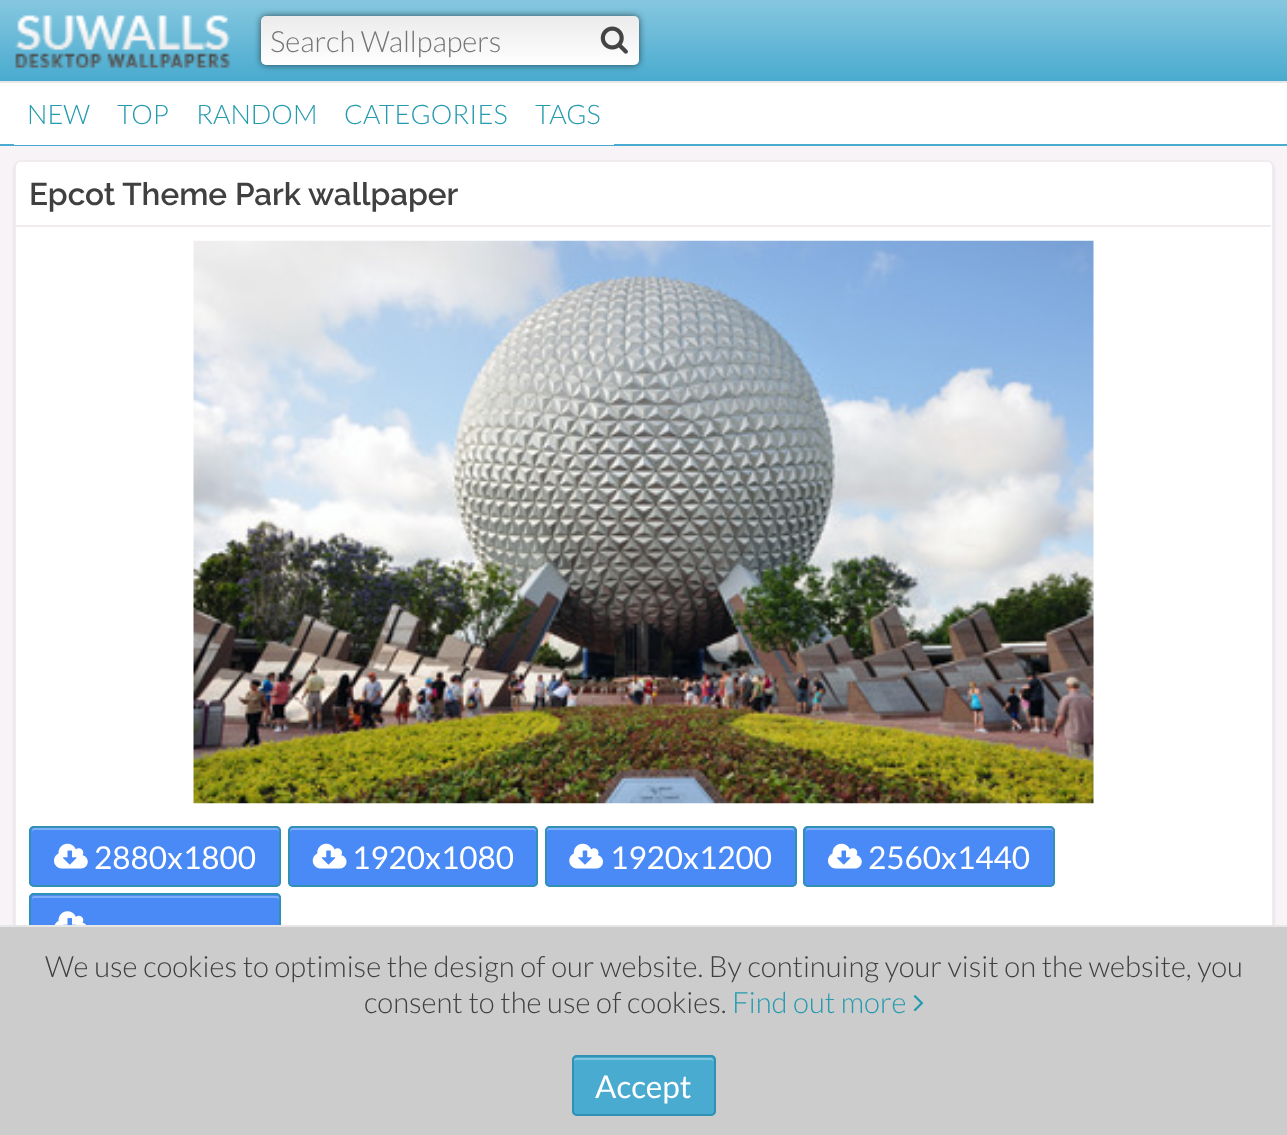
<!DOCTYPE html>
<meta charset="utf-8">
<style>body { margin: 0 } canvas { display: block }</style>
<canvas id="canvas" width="1287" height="1135"></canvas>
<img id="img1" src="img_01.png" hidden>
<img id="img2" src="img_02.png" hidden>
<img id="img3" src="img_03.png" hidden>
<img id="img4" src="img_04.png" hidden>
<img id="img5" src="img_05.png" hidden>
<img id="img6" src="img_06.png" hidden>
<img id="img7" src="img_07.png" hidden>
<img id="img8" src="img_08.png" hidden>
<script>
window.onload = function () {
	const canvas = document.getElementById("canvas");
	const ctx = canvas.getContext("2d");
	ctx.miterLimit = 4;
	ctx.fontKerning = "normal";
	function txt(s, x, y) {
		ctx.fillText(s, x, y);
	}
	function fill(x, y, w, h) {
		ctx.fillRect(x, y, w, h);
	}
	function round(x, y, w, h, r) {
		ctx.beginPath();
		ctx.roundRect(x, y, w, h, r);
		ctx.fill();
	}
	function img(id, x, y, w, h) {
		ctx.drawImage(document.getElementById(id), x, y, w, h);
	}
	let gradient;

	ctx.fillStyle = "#F7F3F7";
	fill(0, 0, 1287, 1135);
	gradient = ctx.createLinearGradient(644, 0, 644, 81);
	gradient.addColorStop(0, "#86C7DF");
	gradient.addColorStop(1, "#49ABCF");
	ctx.fillStyle = gradient;
	fill(0, 0, 1287, 81);
	ctx.fillStyle = "#E7E7E7";
	fill(0, 81, 1287, 2);
	img("img1", 15, 15, 216, 54);
	ctx.fillStyle = "rgba(0, 0, 0, 0.6)";
	ctx.filter = "blur(3.5px)";
	ctx.beginPath();
	ctx.roundRect(261, 16, 378, 49, 5);
	ctx.fill();
	ctx.filter = "none";
	ctx.fillStyle = "#FFFFFF";
	round(261, 16, 378, 49, 5);
	gradient = ctx.createLinearGradient(450, 16, 450, 65);
	gradient.addColorStop(0, "rgba(0, 0, 0, 0.08)");
	gradient.addColorStop(1, "rgba(255, 255, 255, 0.08)");
	ctx.fillStyle = gradient;
	round(261, 16, 378, 49, 5);
	img("img2", 600, 26, 28, 28);
	ctx.fillStyle = "#FFFFFF";
	fill(0, 83, 1287, 61);
	ctx.fillStyle = "#49ABCF";
	fill(0, 144, 1287, 2);
	ctx.fillStyle = "#FFFFFF";
	fill(14, 144, 600, 1);
	ctx.fillStyle = "rgba(0, 0, 0, 0.14)";
	ctx.filter = "blur(1px)";
	ctx.beginPath();
	ctx.roundRect(14, 162, 1260, 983, 7);
	ctx.fill();
	ctx.filter = "none";
	ctx.fillStyle = "#FFFFFF";
	ctx.beginPath();
	ctx.roundRect(15, 161, 1258, 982, 6);
	ctx.fill();
	ctx.strokeStyle = "#EFEBEF";
	ctx.lineWidth = 2;
	ctx.stroke();
	ctx.fillStyle = "#EFEBEF";
	fill(16, 225, 1255, 2);
	img("img3", 193, 240, 901, 564);
	ctx.fillStyle = "#4A8AF7";
	round(29, 826, 252, 61, 5);
	ctx.fillStyle = "#80ADF9";
	ctx.beginPath();
	ctx.moveTo(34, 830);
	ctx.lineTo(277, 830);
	ctx.bezierCurveTo(278, 830, 279, 831, 279, 832);
	ctx.bezierCurveTo(279, 830, 279, 828, 277, 828);
	ctx.lineTo(34, 828);
	ctx.bezierCurveTo(32, 828, 32, 830, 32, 832);
	ctx.bezierCurveTo(32, 831, 33, 830, 34, 830);
	ctx.closePath();
	ctx.fill();
	ctx.beginPath();
	ctx.roundRect(30, 827, 250, 59, 4);
	ctx.strokeStyle = "#3091B5";
	ctx.stroke();
	img("img4", 54, 843, 34, 26);
	ctx.fillStyle = "#4A8AF7";
	round(288, 826, 250, 61, 5);
	ctx.fillStyle = "#80ADF9";
	ctx.beginPath();
	ctx.moveTo(292, 830);
	ctx.lineTo(533, 830);
	ctx.bezierCurveTo(534, 830, 536, 831, 536, 832);
	ctx.lineTo(536, 830);
	ctx.bezierCurveTo(536, 829, 535, 828, 534, 828);
	ctx.lineTo(292, 828);
	ctx.bezierCurveTo(291, 828, 290, 829, 290, 830);
	ctx.lineTo(290, 832);
	ctx.bezierCurveTo(290, 831, 291, 830, 292, 830);
	ctx.closePath();
	ctx.fill();
	ctx.beginPath();
	ctx.roundRect(289, 827, 248, 59, 4);
	ctx.stroke();
	img("img5", 312, 843, 35, 26);
	ctx.fillStyle = "#4A8AF7";
	round(545, 826, 252, 61, 5);
	ctx.fillStyle = "#80ADF9";
	ctx.beginPath();
	ctx.moveTo(549, 830);
	ctx.lineTo(792, 830);
	ctx.bezierCurveTo(793, 830, 794, 831, 794, 832);
	ctx.bezierCurveTo(794, 830, 794, 828, 792, 828);
	ctx.lineTo(549, 828);
	ctx.bezierCurveTo(547, 828, 547, 830, 547, 832);
	ctx.bezierCurveTo(547, 831, 548, 830, 549, 830);
	ctx.closePath();
	ctx.fill();
	ctx.beginPath();
	ctx.roundRect(546, 827, 250, 59, 4);
	ctx.stroke();
	img("img6", 569, 843, 34, 26);
	ctx.fillStyle = "#4A8AF7";
	round(803, 826, 252, 61, 5);
	ctx.fillStyle = "#80ADF9";
	ctx.beginPath();
	ctx.moveTo(808, 830);
	ctx.lineTo(1051, 830);
	ctx.bezierCurveTo(1052, 830, 1053, 831, 1053, 832);
	ctx.bezierCurveTo(1053, 830, 1053, 828, 1051, 828);
	ctx.lineTo(808, 828);
	ctx.bezierCurveTo(806, 828, 806, 830, 806, 832);
	ctx.bezierCurveTo(806, 831, 807, 830, 808, 830);
	ctx.closePath();
	ctx.fill();
	ctx.beginPath();
	ctx.roundRect(804, 827, 250, 59, 4);
	ctx.stroke();
	img("img4", 828, 843, 34, 26);
	ctx.fillStyle = "#4A8AF7";
	round(29, 893, 252, 61, 5);
	ctx.fillStyle = "#80ADF9";
	ctx.beginPath();
	ctx.moveTo(34, 898);
	ctx.lineTo(277, 898);
	ctx.bezierCurveTo(278, 898, 279, 899, 279, 900);
	ctx.bezierCurveTo(279, 898, 279, 896, 277, 896);
	ctx.lineTo(34, 896);
	ctx.bezierCurveTo(32, 896, 32, 898, 32, 900);
	ctx.bezierCurveTo(32, 899, 33, 898, 34, 898);
	ctx.closePath();
	ctx.fill();
	ctx.beginPath();
	ctx.roundRect(30, 894, 250, 59, 4);
	ctx.stroke();
	img("img7", 54, 911, 33, 14);
	ctx.fillStyle = "#CCCCCC";
	fill(0, 927, 1287, 208);
	ctx.fillStyle = "#E7E7E7";
	fill(0, 925, 1287, 2);
	img("img8", 913, 995, 11, 17);
	ctx.fillStyle = "#49ABCF";
	round(572, 1055, 144, 61, 5);
	ctx.fillStyle = "#80C4DD";
	ctx.beginPath();
	ctx.moveTo(576, 1060);
	ctx.lineTo(711, 1060);
	ctx.bezierCurveTo(712, 1060, 713, 1061, 713, 1062);
	ctx.lineTo(713, 1060);
	ctx.bezierCurveTo(713, 1059, 712, 1058, 711, 1058);
	ctx.lineTo(576, 1058);
	ctx.bezierCurveTo(575, 1058, 574, 1059, 574, 1060);
	ctx.lineTo(574, 1062);
	ctx.bezierCurveTo(574, 1061, 575, 1060, 576, 1060);
	ctx.closePath();
	ctx.fill();
	ctx.beginPath();
	ctx.roundRect(573, 1056, 142, 59, 4);
	ctx.stroke();
	ctx.font = "300 29.25px Lato";
	ctx.fillStyle = "#757575";
	txt("Search Wallpapers", 270, 52);
	ctx.font = "300 27px Lato";
	ctx.fillStyle = "#259BB0";
	txt("NEW", 27, 124);
	txt("TOP", 117, 124);
	txt("RANDOM", 196, 124);
	txt("CATEGORIES", 344, 124);
	txt("TAGS", 535, 124);
	ctx.font = "100 31.5px Raleway";
	ctx.fillStyle = "#404040";
	txt("Epcot Theme Park wallpaper", 29, 205);
	ctx.font = "31.5px Lato";
	ctx.fillStyle = "#FFFFFF";
	txt("2880x1800", 94, 869);
	txt("1920x1080", 352, 869);
	txt("1920x1200", 610, 869);
	txt("2560x1440", 868, 869);
	ctx.font = "300 29.25px Lato";
	ctx.fillStyle = "#404040";
	txt("We use cookies to optimise the design of our website. By continuing your visit on the website, you", 45, 977);
	txt("consent to the use of cookies.", 364, 1013);
	ctx.fillStyle = "#259BB0";
	txt("Find out more", 732, 1013);
	ctx.font = "31.5px Lato";
	ctx.fillStyle = "#FFFFFF";
	txt("Accept", 595, 1098);
};
</script>
